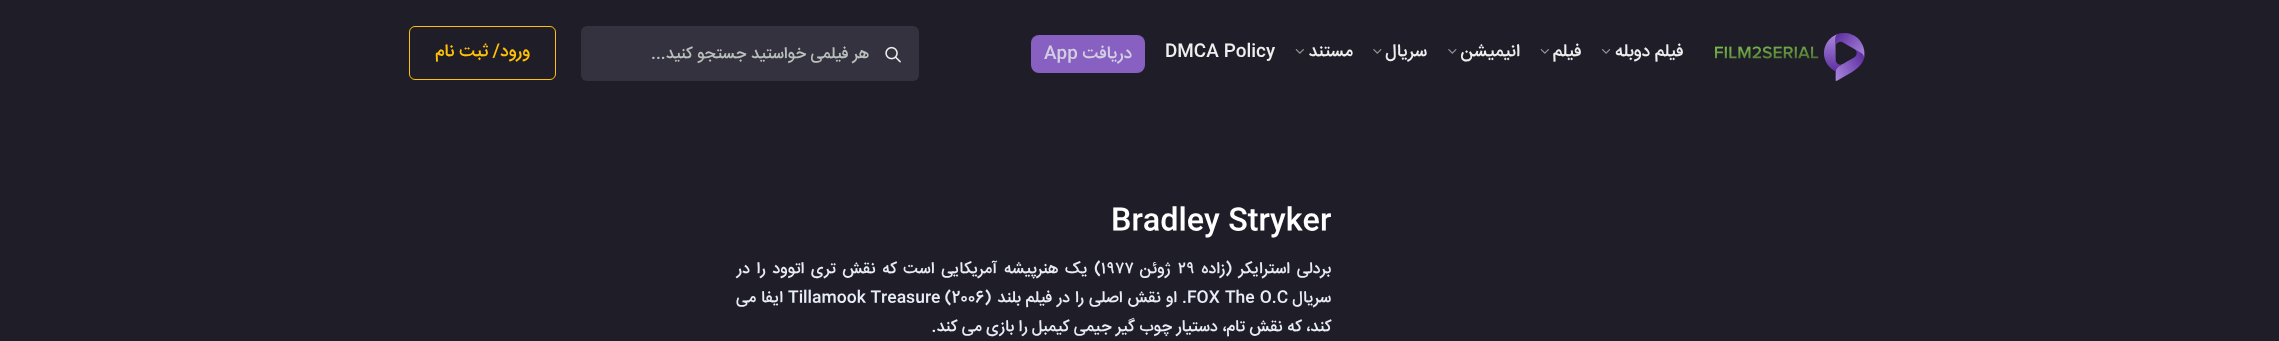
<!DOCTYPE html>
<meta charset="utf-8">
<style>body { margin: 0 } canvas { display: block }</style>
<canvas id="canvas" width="2279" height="341"></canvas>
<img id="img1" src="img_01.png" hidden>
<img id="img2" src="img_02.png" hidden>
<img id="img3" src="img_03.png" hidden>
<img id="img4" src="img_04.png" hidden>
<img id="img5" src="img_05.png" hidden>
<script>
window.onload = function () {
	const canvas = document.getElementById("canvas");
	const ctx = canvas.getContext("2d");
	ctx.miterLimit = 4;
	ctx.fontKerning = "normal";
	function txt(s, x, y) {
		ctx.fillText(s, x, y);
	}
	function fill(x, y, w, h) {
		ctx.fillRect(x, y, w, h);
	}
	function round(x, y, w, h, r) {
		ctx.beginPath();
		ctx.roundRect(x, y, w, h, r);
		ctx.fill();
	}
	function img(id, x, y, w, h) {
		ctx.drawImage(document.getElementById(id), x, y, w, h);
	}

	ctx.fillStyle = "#1F1D28";
	fill(0, 0, 2279, 341);
	img("img1", 1715, 33, 150, 48);
	img("img2", 1602, 49, 9, 5);
	img("img3", 1540, 49, 9, 5);
	img("img4", 1448, 49, 9, 5);
	img("img4", 1373, 49, 9, 5);
	img("img3", 1295, 49, 9, 5);
	ctx.fillStyle = "#8860C2";
	ctx.beginPath();
	ctx.roundRect(1031, 35, 47, 38, [8, 0, 0, 8]);
	ctx.fill();
	ctx.beginPath();
	ctx.roundRect(1078, 35, 67, 38, [0, 8, 8, 0]);
	ctx.fill();
	ctx.fillStyle = "#34323F";
	round(581, 26, 338, 55, 6);
	img("img5", 885, 46, 16, 17);
	ctx.beginPath();
	ctx.roundRect(409.5, 26.5, 146, 53, 5.5);
	ctx.strokeStyle = "#FFC107";
	ctx.stroke();
	ctx.direction = "rtl";
	ctx.font = "500 17.5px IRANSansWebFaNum";
	ctx.fillStyle = "#EEEEEE";
	txt("فیلم دوبله", 1683, 56);
	txt("فیلم", 1581, 56);
	txt("انیمیشن", 1520, 56);
	txt("سریال", 1427, 56);
	txt("مستند", 1353, 56);
	ctx.direction = "ltr";
	txt("DMCA Policy", 1165, 56);
	ctx.direction = "rtl";
	ctx.fillStyle = "#D2CFE2";
	txt("دریافت", 1132, 58);
	ctx.direction = "ltr";
	txt("App", 1044, 58);
	ctx.direction = "rtl";
	ctx.font = "500 16.25px IRANSansWebFaNum";
	ctx.fillStyle = "#B8BFBC";
	txt("هر فیلمی خواستید جستجو کنید...", 869, 58);
	ctx.font = "500 17.5px IRANSansWebFaNum";
	ctx.fillStyle = "#FFC107";
	txt("ورود/", 530, 56);
	txt("ثبت نام", 488, 56);
	ctx.direction = "ltr";
	ctx.font = "500 30px IRANSansWebFaNum";
	ctx.fillStyle = "#FFFFFF";
	txt("Bradley Stryker", 1111, 229);
	ctx.wordSpacing = "2.1px";
	ctx.direction = "rtl";
	ctx.font = "500 16.25px IRANSansWebFaNum";
	ctx.fillStyle = "#E8ECF6";
	txt("بردلی استرایکر (زاده", 1331, 273);
	ctx.wordSpacing = "0px";
	ctx.direction = "ltr";
	txt("۲۹", 1178, 273);
	ctx.direction = "rtl";
	txt("ژوئن", 1171, 273);
	ctx.direction = "ltr";
	txt("۱۹۷۷", 1101, 273);
	ctx.wordSpacing = "2.1px";
	ctx.direction = "rtl";
	txt(") یک هنرپیشه آمریکایی است که نقش تری اتوود را در", 1101, 273);
	ctx.wordSpacing = "0px";
	txt("سریال", 1331, 302);
	ctx.wordSpacing = "0.5px";
	ctx.direction = "ltr";
	txt("FOX The O.C", 1187, 302);
	ctx.direction = "rtl";
	txt(". او نقش اصلی را در فیلم بلند", 1187, 302);
	ctx.wordSpacing = "0px";
	ctx.direction = "ltr";
	txt("Tillamook Treasure (2006)", 788, 302);
	ctx.wordSpacing = "0.5px";
	ctx.direction = "rtl";
	txt("ایفا می", 783, 302);
	ctx.wordSpacing = "0px";
	txt("کند، که نقش تام، دستیار چوب گیر جیمی کیمبل را بازی می کند.", 1331, 331);
};
</script>
